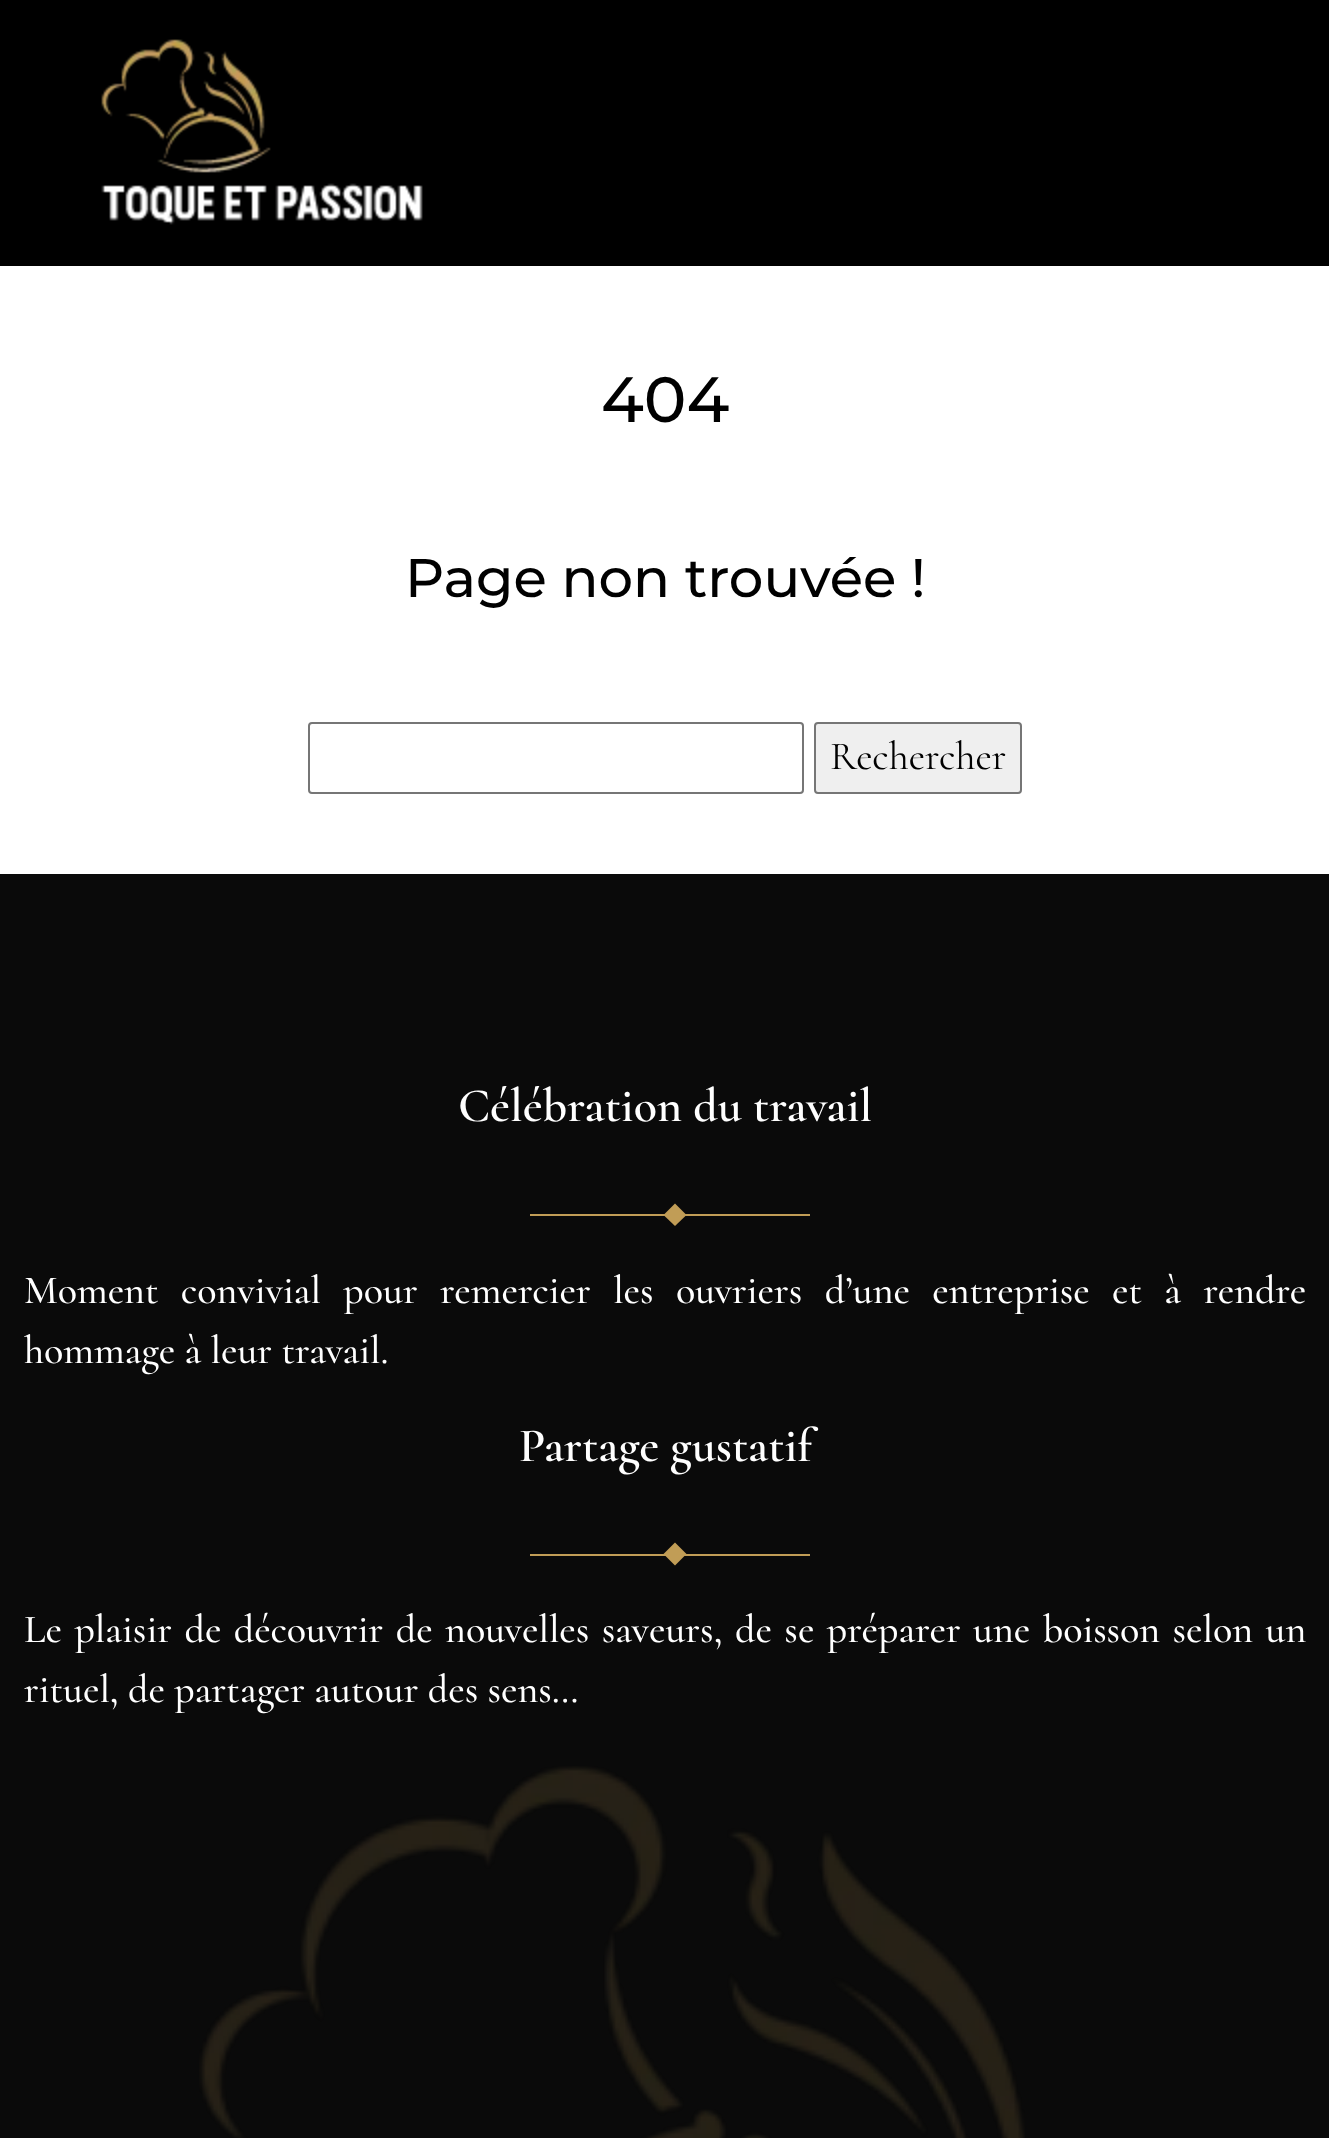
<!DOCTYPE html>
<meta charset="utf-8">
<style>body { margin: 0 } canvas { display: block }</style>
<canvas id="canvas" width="1329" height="2138"></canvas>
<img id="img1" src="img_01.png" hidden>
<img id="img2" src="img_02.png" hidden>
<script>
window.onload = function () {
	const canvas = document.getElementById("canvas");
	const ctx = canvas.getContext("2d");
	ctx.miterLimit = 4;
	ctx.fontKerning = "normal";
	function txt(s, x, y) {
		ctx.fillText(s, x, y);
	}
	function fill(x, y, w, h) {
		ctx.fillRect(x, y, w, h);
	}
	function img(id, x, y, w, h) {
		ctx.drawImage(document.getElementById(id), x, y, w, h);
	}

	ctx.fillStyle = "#FFFFFF";
	fill(0, 0, 1329, 2138);
	ctx.fillStyle = "#000000";
	fill(0, 0, 1329, 266);
	img("img1", 101, 39, 322, 186);
	ctx.beginPath();
	ctx.roundRect(309, 723, 494, 70, 3);
	ctx.strokeStyle = "#767676";
	ctx.lineWidth = 2;
	ctx.stroke();
	ctx.fillStyle = "#EFEFEF";
	ctx.beginPath();
	ctx.roundRect(815, 723, 206, 70, 3);
	ctx.fill();
	ctx.stroke();
	ctx.fillStyle = "#0A0A0A";
	fill(0, 874, 1329, 1264);
	ctx.fillStyle = "#C19D56";
	fill(530, 1214, 280, 2);
	ctx.beginPath();
	ctx.moveTo(675, 1203.5);
	ctx.lineTo(686.5, 1215);
	ctx.lineTo(675, 1226);
	ctx.lineTo(663.5, 1215);
	ctx.closePath();
	ctx.fill();
	fill(530, 1554, 280, 2);
	ctx.beginPath();
	ctx.moveTo(675, 1542.5);
	ctx.lineTo(686.5, 1554);
	ctx.lineTo(675, 1565.5);
	ctx.lineTo(663.5, 1554);
	ctx.closePath();
	ctx.fill();
	img("img2", 199, 1766, 826, 372);
	ctx.font = "500 64px Montserrat";
	ctx.fillStyle = "#000000";
	txt("404", 601, 422);
	ctx.font = "500 54.4px Montserrat";
	txt("Page non trouvée !", 405, 597);
	ctx.font = "40px Cormorant";
	txt("Rechercher", 830, 769);
	ctx.font = "600 48px Cormorant";
	ctx.fillStyle = "#FFFFFF";
	txt("Célébration du travail", 458, 1121);
	ctx.wordSpacing = "13px";
	ctx.font = "500 40px Cormorant";
	txt("Moment convivial pour remercier les ouvriers d’une entreprise et à rendre", 24, 1303);
	ctx.wordSpacing = "0px";
	txt("hommage à leur travail.", 24, 1363);
	ctx.font = "600 48px Cormorant";
	txt("Partage gustatif", 519, 1461);
	ctx.wordSpacing = "3.1px";
	ctx.font = "500 40px Cormorant";
	txt("Le plaisir de découvrir de nouvelles saveurs, de se préparer une boisson selon un", 24, 1642);
	ctx.wordSpacing = "0px";
	txt("rituel, de partager autour des sens…", 24, 1702);
};
</script>
